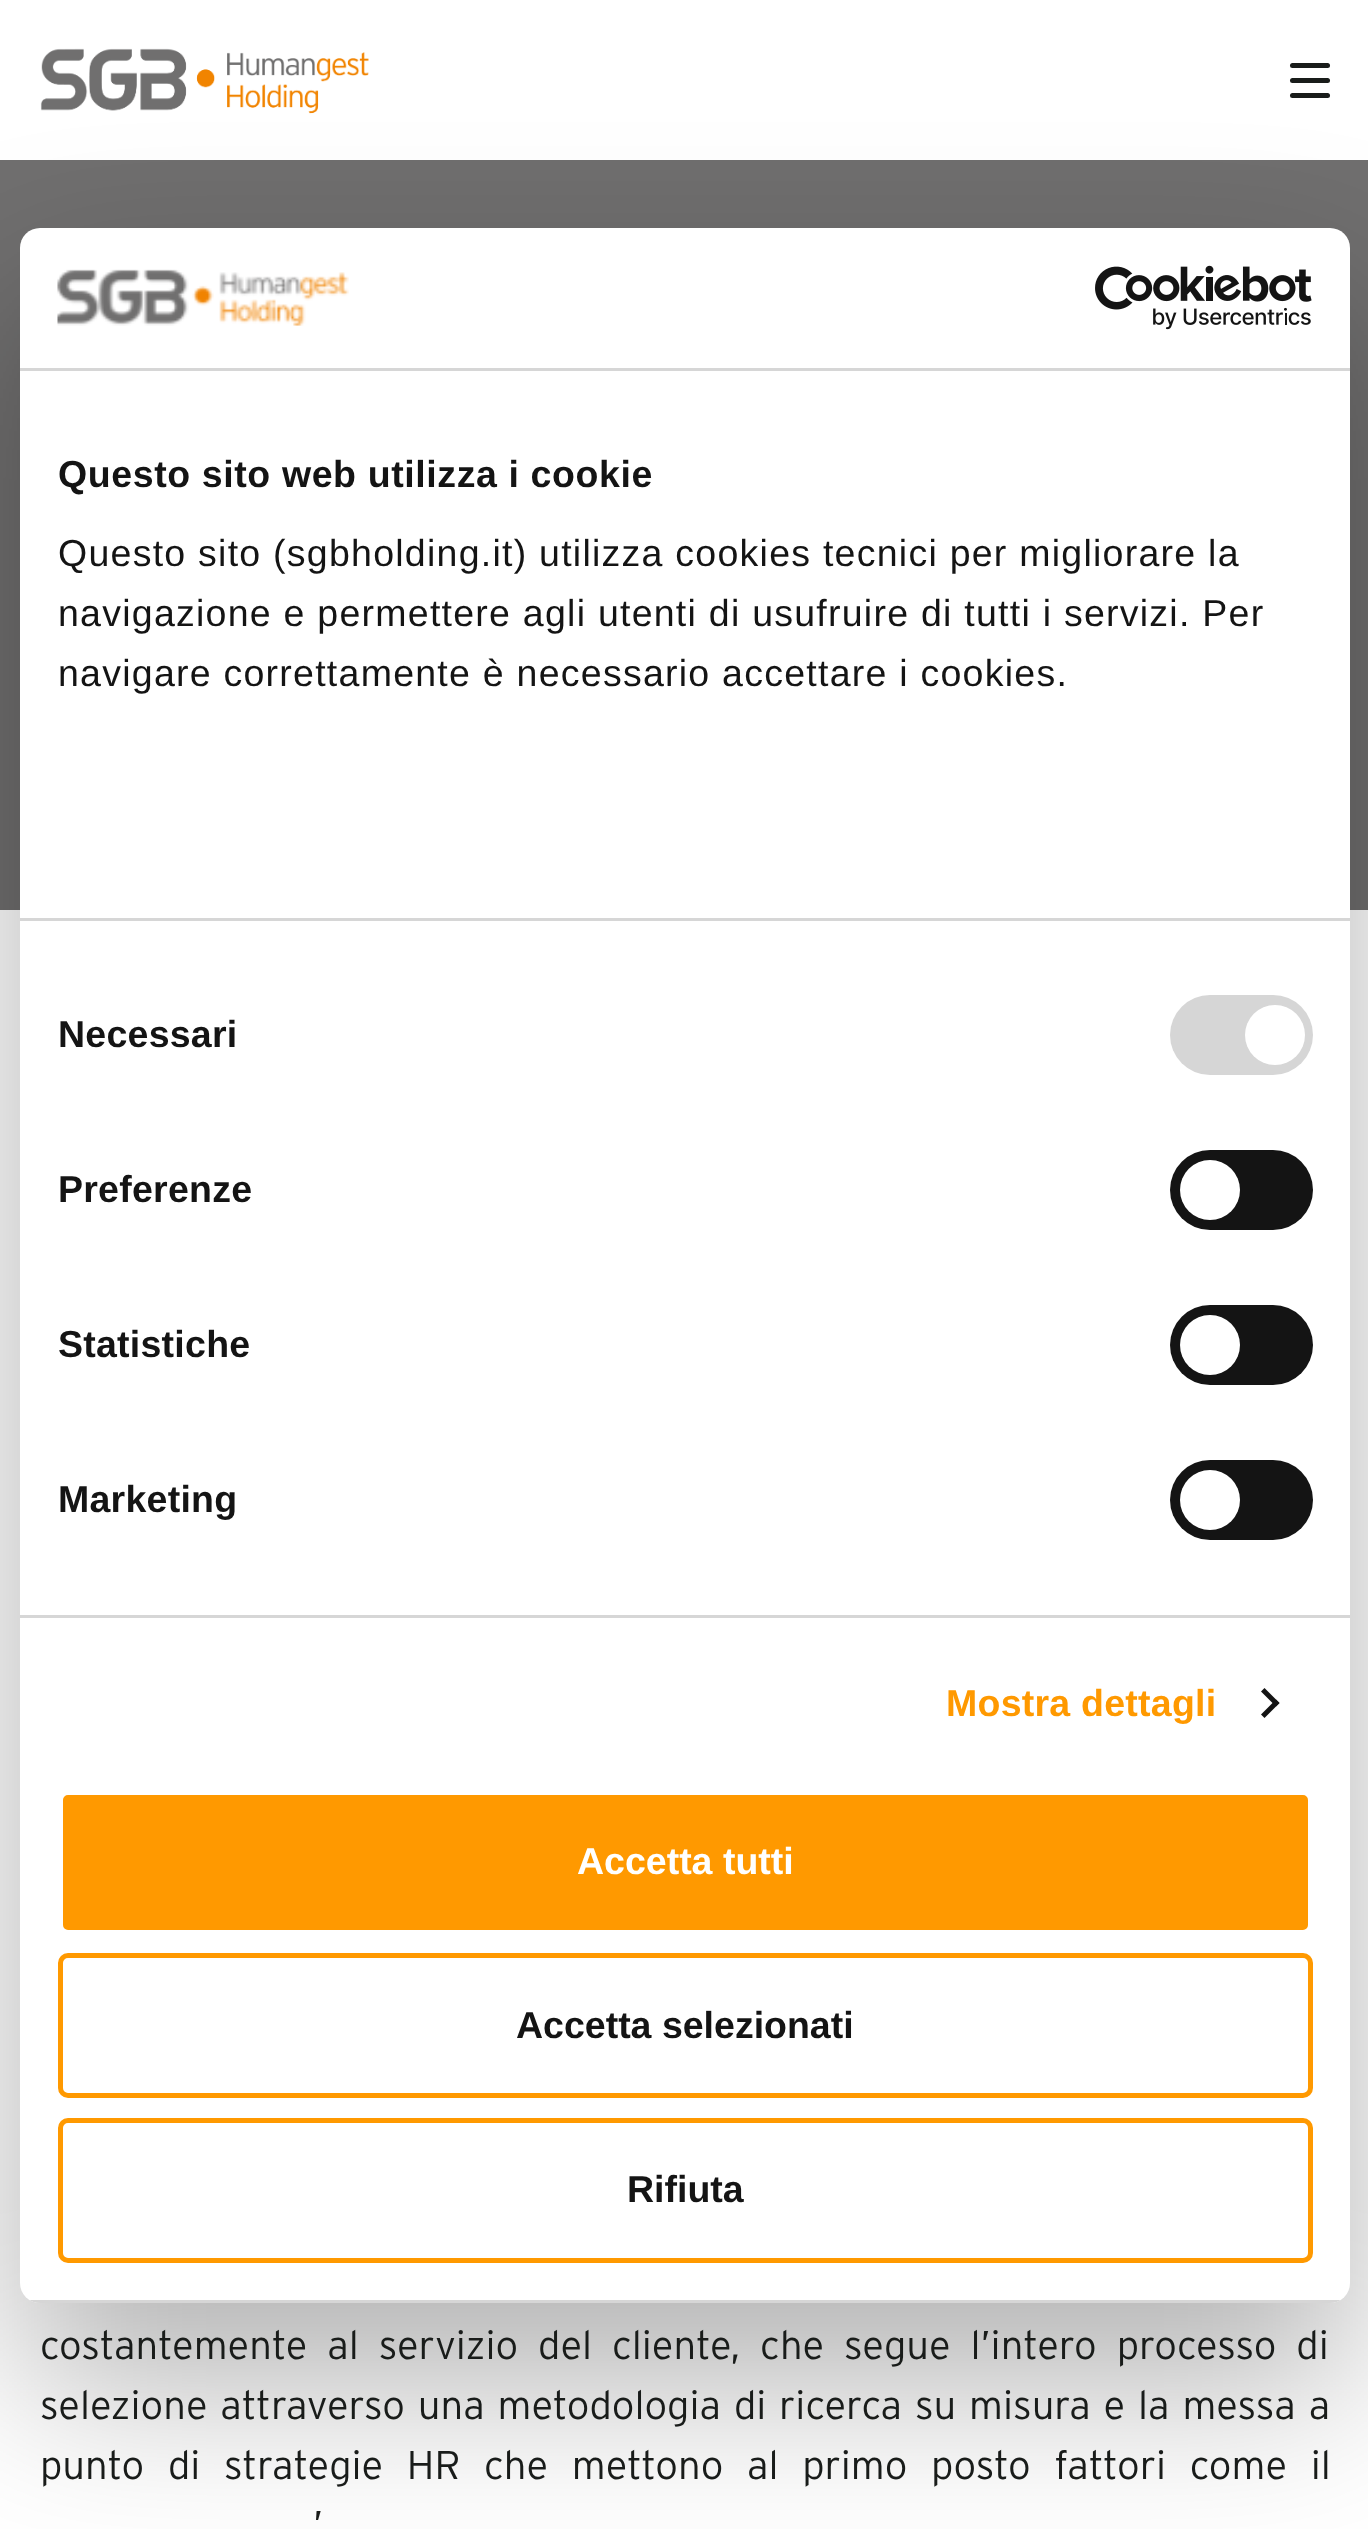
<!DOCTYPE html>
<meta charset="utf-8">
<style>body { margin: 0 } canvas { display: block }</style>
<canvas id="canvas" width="1368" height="2529"></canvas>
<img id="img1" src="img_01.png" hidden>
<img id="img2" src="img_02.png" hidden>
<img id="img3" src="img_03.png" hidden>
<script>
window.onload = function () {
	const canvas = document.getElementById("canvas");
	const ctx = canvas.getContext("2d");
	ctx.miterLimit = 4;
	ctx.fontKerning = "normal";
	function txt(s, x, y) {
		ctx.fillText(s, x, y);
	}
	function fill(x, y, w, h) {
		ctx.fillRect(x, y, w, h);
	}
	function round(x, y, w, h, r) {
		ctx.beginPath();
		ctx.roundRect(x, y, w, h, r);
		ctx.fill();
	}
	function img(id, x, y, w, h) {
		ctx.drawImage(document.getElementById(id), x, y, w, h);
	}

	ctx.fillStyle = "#FFFFFF";
	fill(0, 0, 1368, 2529);
	img("img1", 40, 48, 329, 66);
	ctx.fillStyle = "#191C1A";
	round(1290, 63, 40, 5, 2.5);
	round(1290, 78, 40, 5, 2.5);
	round(1290, 93, 40, 5, 2.5);
	ctx.fillStyle = "#706F6F";
	fill(0, 160, 1368, 750);
	ctx.fillStyle = "rgba(0, 0, 0, 0.3)";
	ctx.filter = "blur(85px)";
	ctx.beginPath();
	ctx.roundRect(20, 308, 1330, 2075, 20);
	ctx.fill();
	ctx.filter = "none";
	ctx.fillStyle = "#FFFFFF";
	round(20, 228, 1330, 2075, 20);
	ctx.fillStyle = "#D6D6D6";
	fill(20, 368, 1330, 3);
	img("img2", 57, 269, 292, 57);
	img("img3", 1095, 265, 217, 65);
	fill(20, 918, 1330, 3);
	fill(20, 1615, 1330, 3);
	round(1170, 995, 143, 80, 40);
	ctx.fillStyle = "#FFFFFF";
	ctx.beginPath();
	ctx.arc(1275, 1035, 30, 0, Math.PI * 2);
	ctx.fill();
	ctx.fillStyle = "#141414";
	round(1170, 1150, 143, 80, 40);
	ctx.fillStyle = "#FFFFFF";
	ctx.beginPath();
	ctx.arc(1210, 1190, 30, 0, Math.PI * 2);
	ctx.fill();
	ctx.fillStyle = "#141414";
	round(1170, 1305, 143, 80, 40);
	ctx.fillStyle = "#FFFFFF";
	ctx.beginPath();
	ctx.arc(1210, 1345, 30, 0, Math.PI * 2);
	ctx.fill();
	ctx.fillStyle = "#141414";
	round(1170, 1460, 143, 80, 40);
	ctx.fillStyle = "#FFFFFF";
	ctx.beginPath();
	ctx.arc(1210, 1500, 30, 0, Math.PI * 2);
	ctx.fill();
	ctx.fillStyle = "#141414";
	ctx.beginPath();
	ctx.moveTo(1264.5, 1688);
	ctx.lineTo(1279.5, 1703);
	ctx.lineTo(1276, 1706.5);
	ctx.lineTo(1261, 1691.5);
	ctx.closePath();
	ctx.fill();
	ctx.beginPath();
	ctx.moveTo(1276, 1699.5);
	ctx.lineTo(1279.5, 1703);
	ctx.lineTo(1264.5, 1718);
	ctx.lineTo(1261, 1714.5);
	ctx.closePath();
	ctx.fill();
	ctx.save();
	ctx.beginPath();
	ctx.roundRect(20, 228, 1330, 2075, 20);
	ctx.clip();
	ctx.fillStyle = "#D6D6D6";
	fill(29, 2300, 1312, 3);
	ctx.restore();
	ctx.fillStyle = "#FF9900";
	ctx.beginPath();
	ctx.roundRect(60.5, 1792.5, 1250, 140, 7.5);
	ctx.fill();
	ctx.strokeStyle = "#FFFFFF";
	ctx.lineWidth = 5;
	ctx.stroke();
	ctx.beginPath();
	ctx.roundRect(60.5, 1955.5, 1250, 140, 7.5);
	ctx.strokeStyle = "#FF9900";
	ctx.stroke();
	ctx.beginPath();
	ctx.roundRect(60.5, 2120.5, 1250, 140, 7.5);
	ctx.stroke();
	ctx.letterSpacing = "0.6px";
	ctx.font = "bold 37.5px Liberation Sans";
	ctx.fillStyle = "#141414";
	txt("Questo sito web utilizza i cookie", 58, 487);
	ctx.letterSpacing = "1.25px";
	ctx.font = "37.5px Liberation Sans";
	txt("Questo sito (sgbholding.it) utilizza cookies tecnici per migliorare la", 58, 566);
	txt("navigazione e permettere agli utenti di usufruire di tutti i servizi. Per", 58, 626);
	txt("navigare correttamente è necessario accettare i cookies.", 58, 686);
	ctx.letterSpacing = "0.25px";
	ctx.font = "bold 37.5px Liberation Sans";
	txt("Necessari", 58, 1047);
	txt("Preferenze", 58, 1202);
	txt("Statistiche", 58, 1357);
	txt("Marketing", 58, 1512);
	ctx.fillStyle = "#FF9900";
	txt("Mostra dettagli", 946, 1716);
	ctx.letterSpacing = "0px";
	ctx.fillStyle = "#FFFFFF";
	txt("Accetta tutti", 577, 1874);
	ctx.fillStyle = "#141414";
	txt("Accetta selezionati", 516, 2038);
	txt("Rifiuta", 627, 2202);
	ctx.wordSpacing = "9.5px";
	ctx.font = "300 40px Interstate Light";
	ctx.fillStyle = "#191C1A";
	txt("costantemente al servizio del cliente, che segue l’intero processo di", 40, 2359);
	ctx.wordSpacing = "2.4px";
	txt("selezione attraverso una metodologia di ricerca su misura e la messa a", 40, 2419);
	ctx.wordSpacing = "13.25px";
	txt("punto di strategie HR che mettono al primo posto fattori come il", 40, 2479);
	ctx.wordSpacing = "19px";
	txt("’", 313, 2539);
};
</script>
